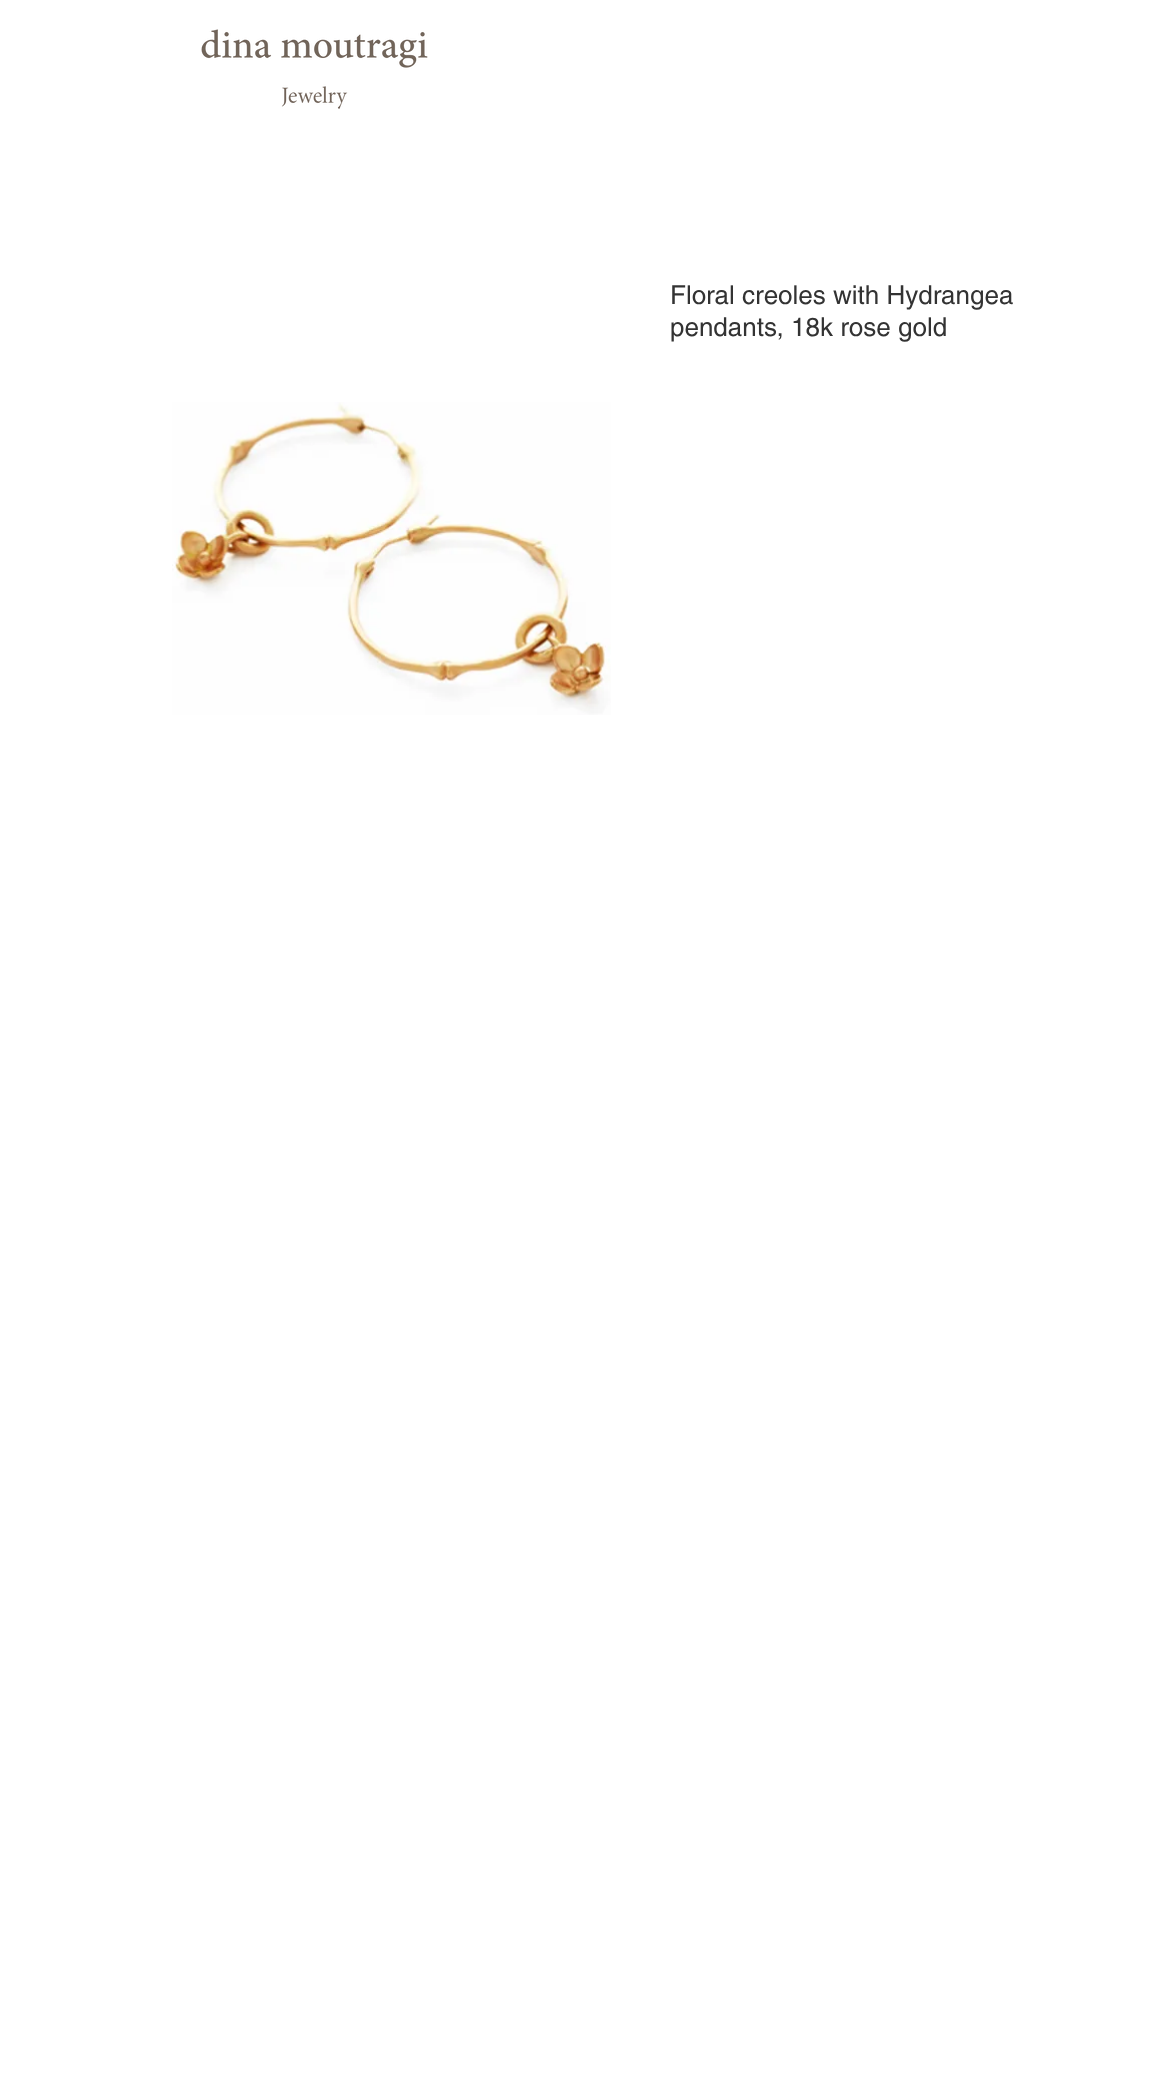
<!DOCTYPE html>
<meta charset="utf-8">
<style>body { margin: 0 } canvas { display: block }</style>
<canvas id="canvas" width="1160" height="2084"></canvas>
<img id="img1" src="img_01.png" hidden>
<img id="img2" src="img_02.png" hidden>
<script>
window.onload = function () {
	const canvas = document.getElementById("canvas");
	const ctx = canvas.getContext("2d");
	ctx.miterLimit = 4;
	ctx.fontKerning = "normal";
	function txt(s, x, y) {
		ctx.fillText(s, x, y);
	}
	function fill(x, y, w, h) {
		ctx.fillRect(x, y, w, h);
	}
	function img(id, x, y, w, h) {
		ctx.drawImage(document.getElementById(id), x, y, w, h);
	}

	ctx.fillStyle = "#FFFFFF";
	fill(0, 0, 1160, 2084);
	img("img1", 201, 29, 227, 80);
	img("img2", 172, 402, 439, 313);
	ctx.font = "26px helvetica";
	ctx.fillStyle = "#333333";
	txt("Floral creoles with Hydrangea", 670, 304);
	txt("pendants, 18k rose gold", 670, 336);
};
</script>
